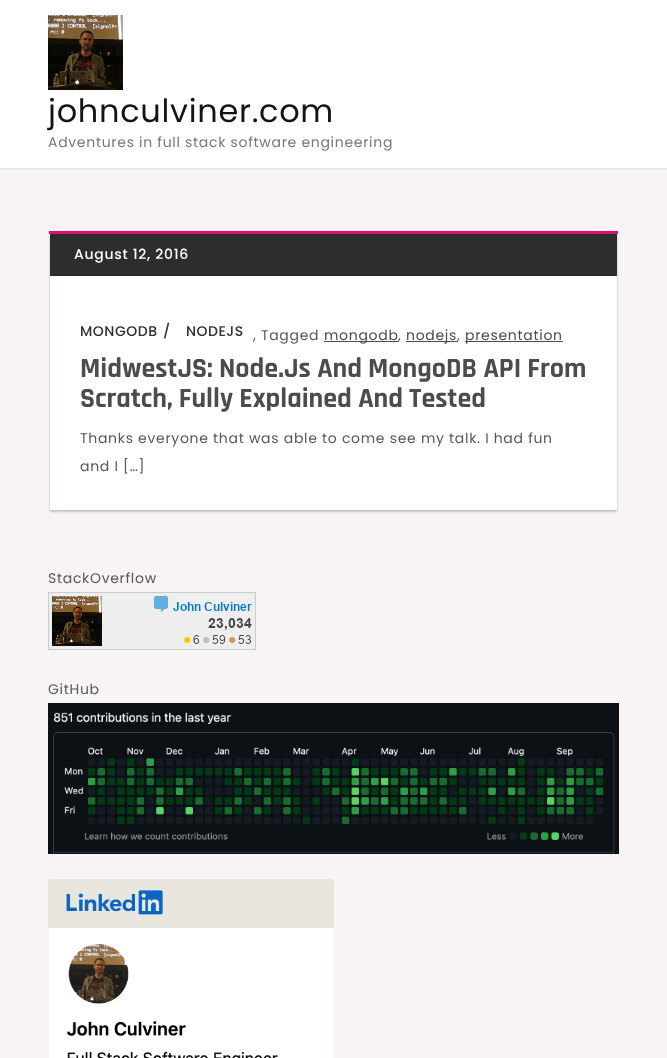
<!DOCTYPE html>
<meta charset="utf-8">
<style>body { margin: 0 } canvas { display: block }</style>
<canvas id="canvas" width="667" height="1058"></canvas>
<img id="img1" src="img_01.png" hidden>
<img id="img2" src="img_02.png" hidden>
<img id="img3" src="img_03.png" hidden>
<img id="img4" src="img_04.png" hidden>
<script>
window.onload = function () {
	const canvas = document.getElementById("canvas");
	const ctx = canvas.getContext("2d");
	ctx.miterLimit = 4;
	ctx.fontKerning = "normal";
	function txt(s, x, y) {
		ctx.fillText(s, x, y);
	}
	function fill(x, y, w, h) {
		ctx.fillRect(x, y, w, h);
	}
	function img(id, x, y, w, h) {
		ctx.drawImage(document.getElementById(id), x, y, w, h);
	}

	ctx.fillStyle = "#F8F3F4";
	fill(0, 0, 667, 1058);
	ctx.fillStyle = "#FFFFFF";
	fill(0, 0, 667, 168);
	ctx.fillStyle = "#E9E9E9";
	fill(0, 168, 667, 2);
	img("img1", 48, 15, 75, 75);
	ctx.fillStyle = "rgba(0, 0, 0, 0.18)";
	ctx.filter = "blur(1px)";
	ctx.beginPath();
	ctx.rect(50, 234, 567, 278);
	ctx.fill();
	ctx.filter = "none";
	ctx.fillStyle = "rgba(0, 0, 0, 0.1)";
	ctx.filter = "blur(1px)";
	ctx.beginPath();
	ctx.rect(50, 232, 567, 278);
	ctx.fill();
	ctx.filter = "none";
	ctx.fillStyle = "#FFFFFF";
	fill(50, 276, 567, 234);
	ctx.fillStyle = "#DA126A";
	fill(49, 231, 569, 3);
	ctx.fillStyle = "#2D2D2D";
	fill(50, 234, 567, 42);
	ctx.fillStyle = "#4C4C4C";
	fill(324, 341, 74, 1);
	fill(406, 341, 51, 1);
	fill(465, 341, 98, 1);
	img("img2", 48, 592, 208, 58);
	img("img3", 48, 703, 571, 151);
	img("img4", 48, 879, 286, 179);
	ctx.letterSpacing = "0.7px";
	ctx.font = "32px Poppins";
	ctx.fillStyle = "#121418";
	txt("johnculviner.com", 48, 122);
	ctx.font = "14px Poppins";
	ctx.fillStyle = "#777777";
	txt("Adventures in full stack software engineering", 48, 147);
	ctx.font = "500 14px Poppins";
	ctx.fillStyle = "#FFFFFF";
	txt("August 12, 2016", 74, 259);
	ctx.letterSpacing = "0.5px";
	ctx.fillStyle = "#313131";
	txt("MONGODB", 80, 336);
	txt("/", 163, 336);
	txt("NODEJS", 186, 336);
	ctx.letterSpacing = "0.7px";
	ctx.font = "14px Poppins";
	ctx.fillStyle = "#565859";
	txt(", Tagged", 253, 340);
	ctx.fillStyle = "#4C4C4C";
	txt("mongodb", 324, 340);
	ctx.fillStyle = "#565859";
	txt(",", 398, 340);
	ctx.fillStyle = "#4C4C4C";
	txt("nodejs", 406, 340);
	ctx.fillStyle = "#565859";
	txt(",", 457, 340);
	ctx.fillStyle = "#4C4C4C";
	txt("presentation", 465, 340);
	ctx.letterSpacing = "0px";
	ctx.font = "bold 28px Rajdhani";
	txt("MidwestJS: Node.Js And MongoDB API From", 80, 377);
	txt("Scratch, Fully Explained And Tested", 80, 407);
	ctx.letterSpacing = "0.7px";
	ctx.font = "14px Poppins";
	ctx.fillStyle = "#565859";
	txt("Thanks everyone that was able to come see my talk. I had fun", 80, 443);
	txt("and I […]", 80, 471);
	txt("StackOverflow", 48, 583);
	txt("GitHub", 48, 694);
};
</script>
